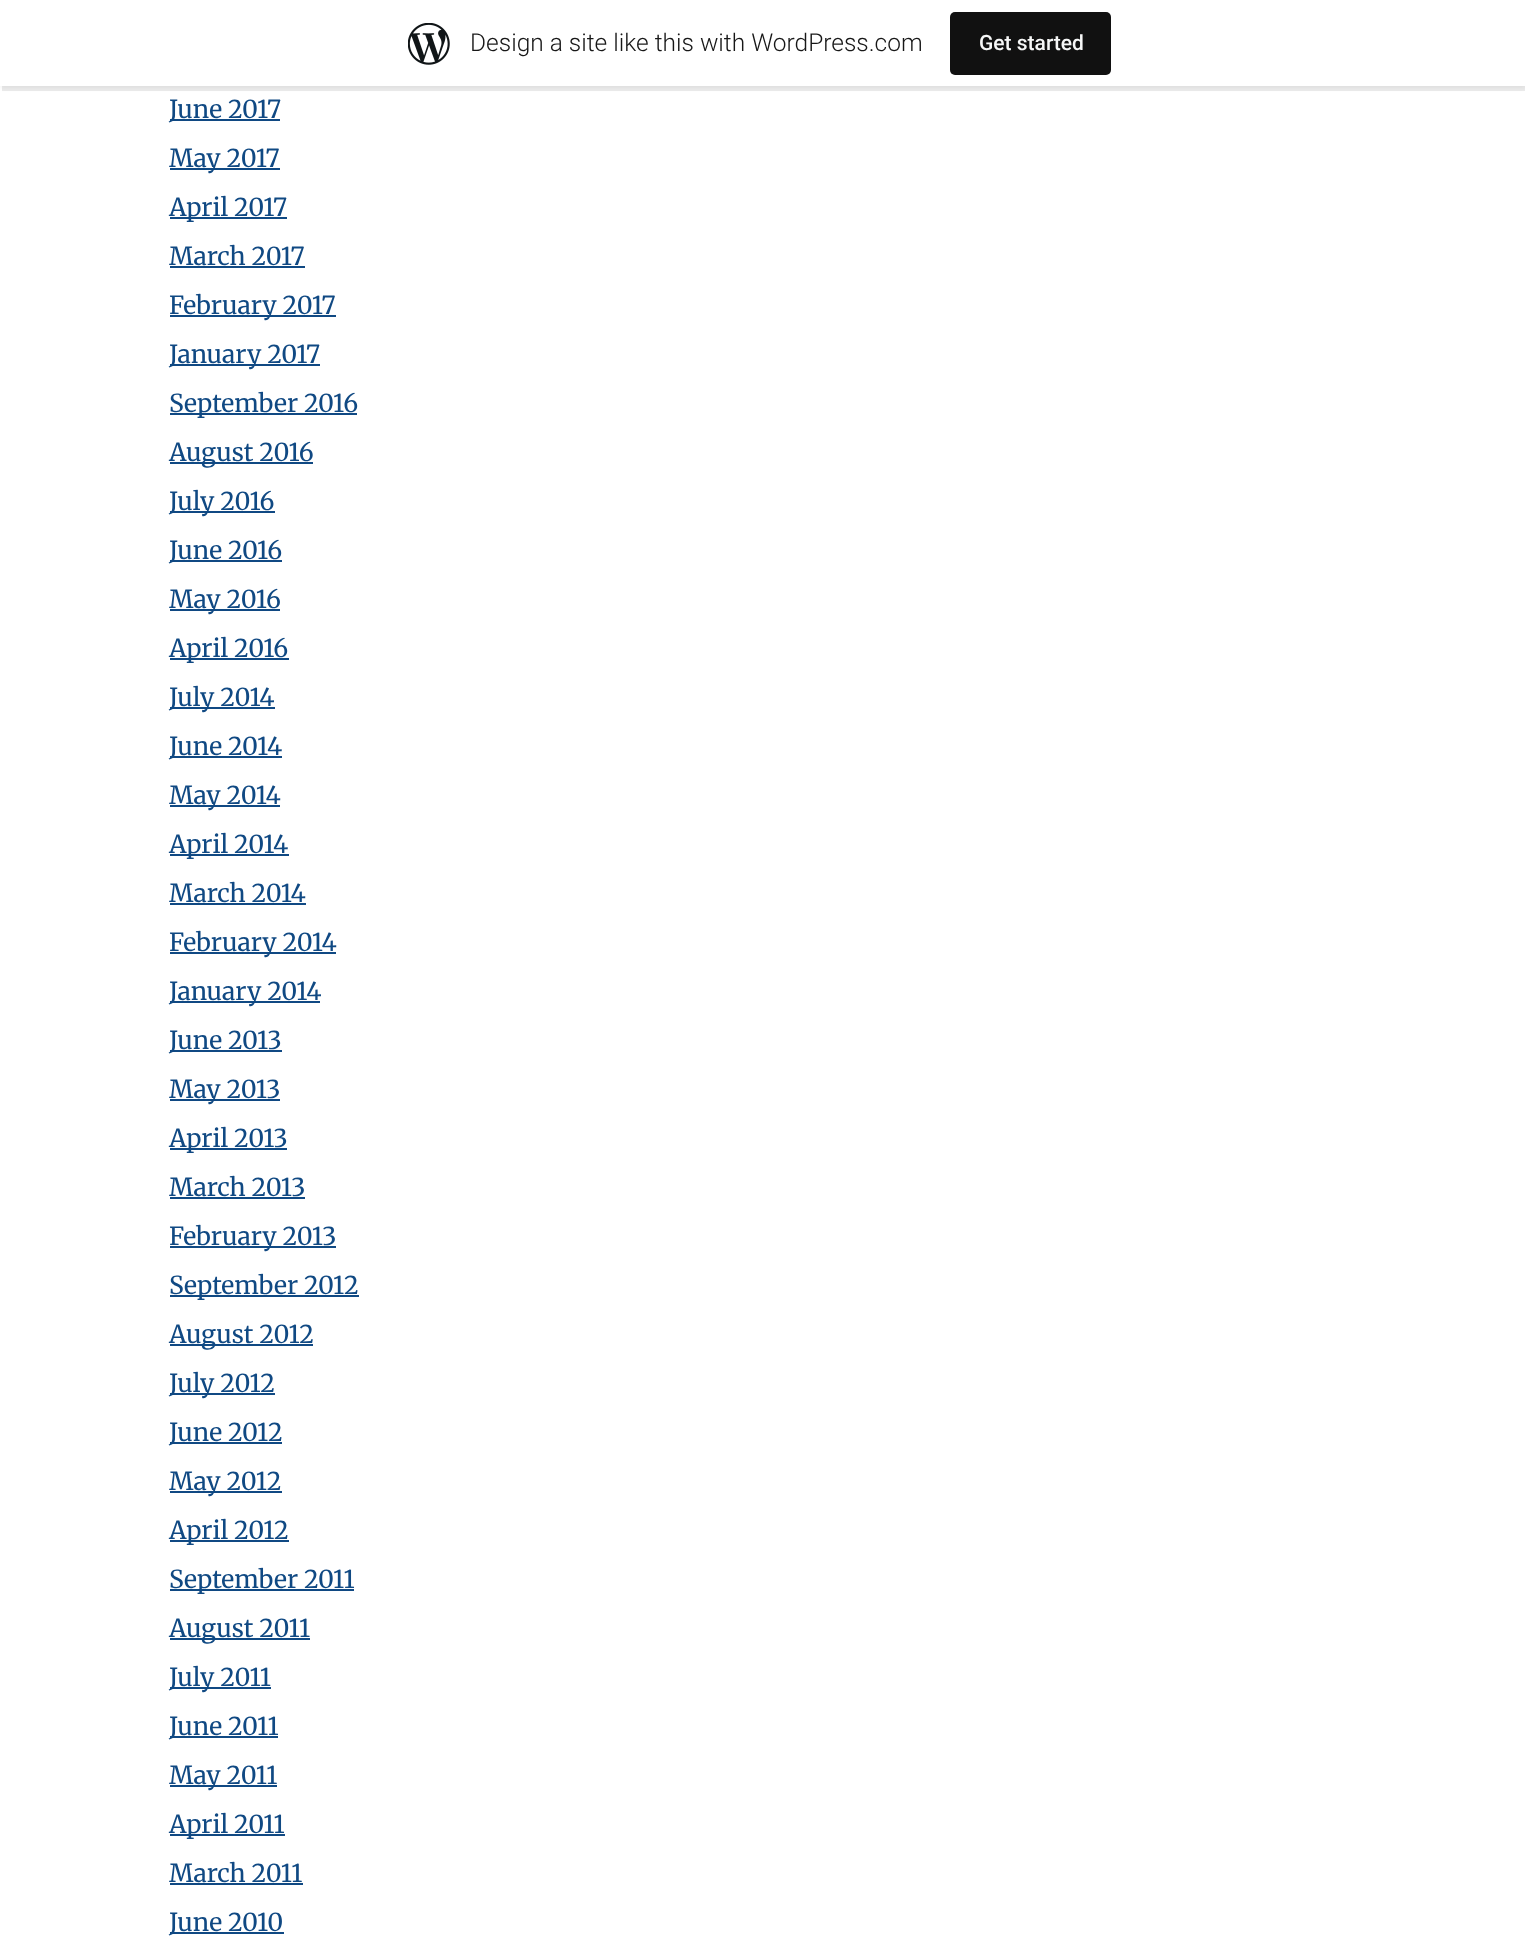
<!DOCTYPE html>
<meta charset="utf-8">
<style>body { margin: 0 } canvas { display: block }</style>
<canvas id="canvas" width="1525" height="1956"></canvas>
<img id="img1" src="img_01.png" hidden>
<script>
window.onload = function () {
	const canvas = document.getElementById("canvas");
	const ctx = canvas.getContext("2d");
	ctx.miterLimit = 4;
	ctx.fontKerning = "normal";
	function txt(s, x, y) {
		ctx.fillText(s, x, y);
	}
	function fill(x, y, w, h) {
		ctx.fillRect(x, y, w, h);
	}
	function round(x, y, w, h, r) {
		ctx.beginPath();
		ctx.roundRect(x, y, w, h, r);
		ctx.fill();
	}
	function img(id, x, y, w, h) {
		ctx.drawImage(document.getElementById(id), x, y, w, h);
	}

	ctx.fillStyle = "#FFFFFF";
	fill(0, 0, 1525, 1956);
	ctx.fillStyle = "rgba(0, 0, 0, 0.05)";
	ctx.filter = "blur(2px)";
	ctx.beginPath();
	ctx.rect(0, 2, 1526, 86);
	ctx.fill();
	ctx.filter = "none";
	ctx.fillStyle = "rgba(0, 0, 0, 0.08)";
	ctx.beginPath();
	ctx.moveTo(2, 86);
	ctx.lineTo(2, 91);
	ctx.lineTo(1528, 91);
	ctx.lineTo(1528, 5);
	ctx.lineTo(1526, 5);
	ctx.lineTo(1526, 86);
	ctx.closePath();
	ctx.fill();
	ctx.fillStyle = "#FFFFFF";
	fill(0, 0, 1525, 86);
	img("img1", 408, 23, 42, 42);
	ctx.fillStyle = "#111111";
	round(950, 12, 161, 63, 5);
	ctx.fillStyle = "#104983";
	fill(170, 119, 110, 2);
	fill(170, 168, 110, 2);
	fill(170, 217, 117, 2);
	fill(170, 266, 135, 2);
	fill(170, 315, 166, 2);
	fill(170, 364, 150, 2);
	fill(170, 413, 187, 2);
	fill(170, 462, 143, 2);
	fill(170, 511, 105, 2);
	fill(170, 560, 112, 2);
	fill(170, 609, 110, 2);
	fill(170, 658, 119, 2);
	fill(170, 707, 105, 2);
	fill(170, 756, 112, 2);
	fill(170, 805, 110, 2);
	fill(170, 854, 119, 2);
	fill(170, 903, 136, 2);
	fill(170, 952, 166, 2);
	fill(170, 1001, 150, 2);
	fill(170, 1050, 112, 2);
	fill(170, 1099, 110, 2);
	fill(170, 1148, 117, 2);
	fill(170, 1197, 135, 2);
	fill(170, 1246, 166, 2);
	fill(170, 1295, 189, 2);
	fill(170, 1344, 143, 2);
	fill(170, 1393, 105, 2);
	fill(170, 1442, 112, 2);
	fill(170, 1491, 112, 2);
	fill(170, 1540, 119, 2);
	fill(170, 1589, 184, 2);
	fill(170, 1638, 140, 2);
	fill(170, 1687, 101, 2);
	fill(170, 1736, 108, 2);
	fill(170, 1785, 107, 2);
	fill(170, 1834, 115, 2);
	fill(170, 1883, 133, 2);
	fill(170, 1932, 114, 2);
	ctx.font = "300 24.5px Roboto";
	ctx.fillStyle = "#171717";
	txt("Design a site like this with WordPress.com", 470, 51);
	ctx.font = "500 21px Roboto";
	ctx.fillStyle = "#F6F7F7";
	txt("Get started", 979, 50);
	ctx.font = "24.75px Merriweather";
	ctx.fillStyle = "#104983";
	txt("June 2017", 169, 118);
	txt("May 2017", 169, 167);
	txt("April 2017", 169, 216);
	txt("March 2017", 169, 265);
	txt("February 2017", 169, 314);
	txt("January 2017", 169, 363);
	txt("September 2016", 169, 412);
	txt("August 2016", 169, 461);
	txt("July 2016", 169, 510);
	txt("June 2016", 169, 559);
	txt("May 2016", 169, 608);
	txt("April 2016", 169, 657);
	txt("July 2014", 169, 706);
	txt("June 2014", 169, 755);
	txt("May 2014", 169, 804);
	txt("April 2014", 169, 853);
	txt("March 2014", 169, 902);
	txt("February 2014", 169, 951);
	txt("January 2014", 169, 1000);
	txt("June 2013", 169, 1049);
	txt("May 2013", 169, 1098);
	txt("April 2013", 169, 1147);
	txt("March 2013", 169, 1196);
	txt("February 2013", 169, 1245);
	txt("September 2012", 169, 1294);
	txt("August 2012", 169, 1343);
	txt("July 2012", 169, 1392);
	txt("June 2012", 169, 1441);
	txt("May 2012", 169, 1490);
	txt("April 2012", 169, 1539);
	txt("September 2011", 169, 1588);
	txt("August 2011", 169, 1637);
	txt("July 2011", 169, 1686);
	txt("June 2011", 169, 1735);
	txt("May 2011", 169, 1784);
	txt("April 2011", 169, 1833);
	txt("March 2011", 169, 1882);
	txt("June 2010", 169, 1931);
};
</script>
